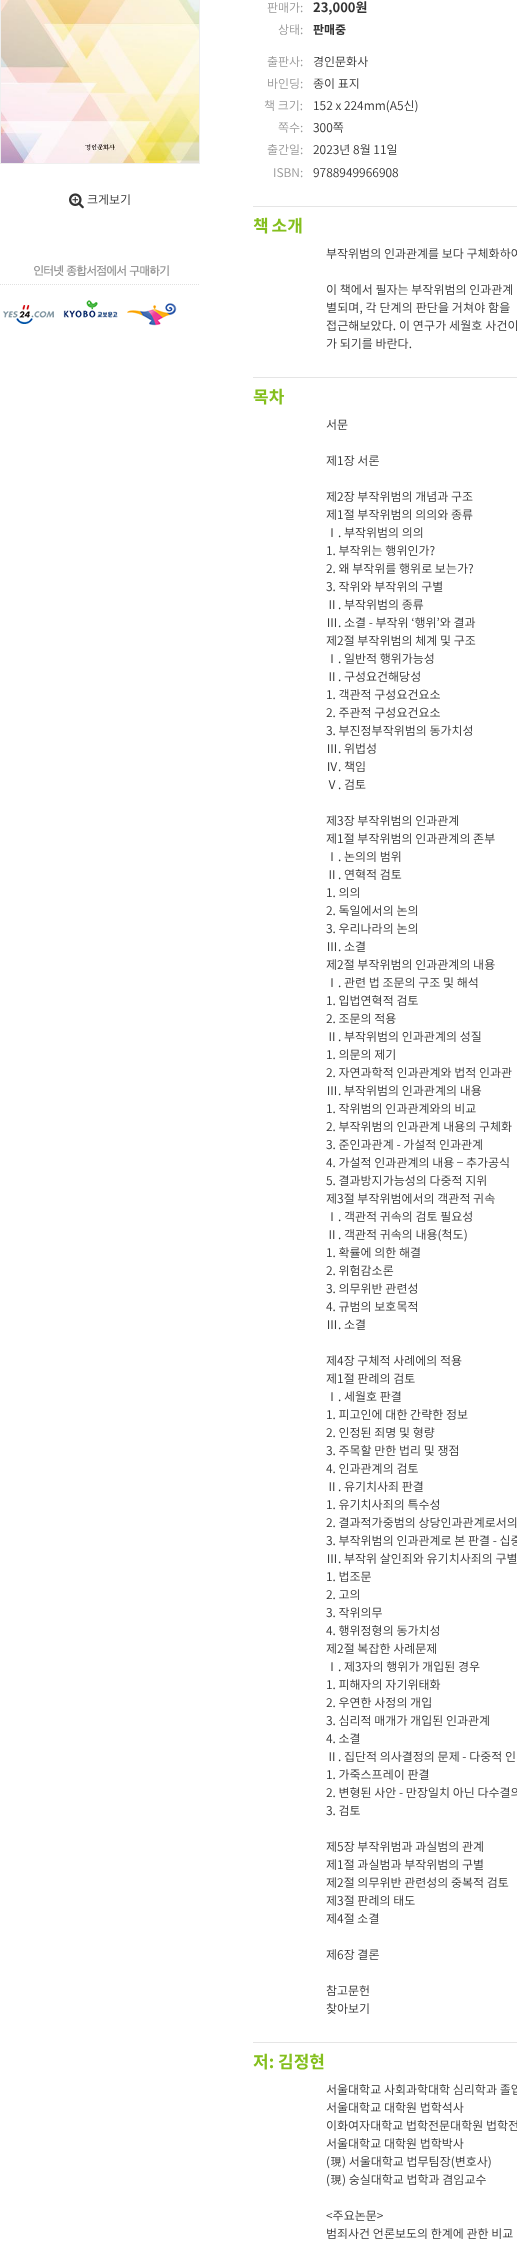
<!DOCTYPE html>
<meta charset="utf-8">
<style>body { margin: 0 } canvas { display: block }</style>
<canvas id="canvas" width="517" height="2241"></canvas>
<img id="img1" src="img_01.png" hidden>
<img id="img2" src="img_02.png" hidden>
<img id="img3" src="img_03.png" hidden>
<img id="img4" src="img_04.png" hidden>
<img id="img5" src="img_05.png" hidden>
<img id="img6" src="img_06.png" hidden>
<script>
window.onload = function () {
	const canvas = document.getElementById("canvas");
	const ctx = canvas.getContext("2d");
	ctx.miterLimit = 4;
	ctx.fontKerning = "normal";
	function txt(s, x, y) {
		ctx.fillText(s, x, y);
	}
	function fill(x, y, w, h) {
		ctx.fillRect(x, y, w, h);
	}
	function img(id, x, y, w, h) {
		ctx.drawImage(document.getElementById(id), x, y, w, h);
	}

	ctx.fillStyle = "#FFFFFF";
	fill(0, 0, 517, 2241);
	ctx.strokeStyle = "#EFEFEF";
	ctx.strokeRect(0.5, -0.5, 199, 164);
	img("img1", 1, 0, 198, 163);
	img("img2", 69, 193, 15, 16);
	img("img3", 0, 265, 199, 20);
	img("img4", 3, 305, 51, 19);
	img("img5", 63, 300, 55, 18);
	img("img6", 127, 303, 50, 23);
	ctx.fillStyle = "#E5E5E5";
	fill(253, 206, 264, 1);
	fill(253, 377, 264, 1);
	fill(253, 2042, 264, 1);
	ctx.font = "300 12px Noto Sans KR";
	ctx.fillStyle = "#333333";
	txt("크게보기", 87, 204);
	ctx.fillStyle = "#999999";
	txt("판매가:", 267, 12);
	ctx.font = "bold 13px Noto Sans KR";
	ctx.fillStyle = "#333333";
	txt("23,000원", 313, 12);
	ctx.font = "300 12px Noto Sans KR";
	ctx.fillStyle = "#999999";
	txt("상태:", 278, 34);
	ctx.font = "bold 12px Noto Sans KR";
	ctx.fillStyle = "#333333";
	txt("판매중", 313, 34);
	ctx.font = "300 12px Noto Sans KR";
	ctx.fillStyle = "#999999";
	txt("출판사:", 267, 66);
	ctx.fillStyle = "#333333";
	txt("경인문화사", 313, 66);
	ctx.fillStyle = "#999999";
	txt("바인딩:", 267, 88);
	ctx.fillStyle = "#333333";
	txt("종이 표지", 313, 88);
	ctx.fillStyle = "#999999";
	txt("책 크기:", 264, 110);
	ctx.fillStyle = "#333333";
	txt("152 x 224mm(A5신)", 313, 110);
	ctx.fillStyle = "#999999";
	txt("쪽수:", 278, 132);
	ctx.fillStyle = "#333333";
	txt("300쪽", 313, 132);
	ctx.fillStyle = "#999999";
	txt("출간일:", 267, 154);
	ctx.fillStyle = "#333333";
	txt("2023년 8월 11일", 313, 154);
	ctx.fillStyle = "#999999";
	txt("ISBN:", 273, 177);
	ctx.fillStyle = "#333333";
	txt("9788949966908", 313, 177);
	ctx.wordSpacing = "-1px";
	ctx.font = "bold 17px Noto Sans KR";
	ctx.fillStyle = "#84BF1D";
	txt("책 소개", 253, 232);
	ctx.wordSpacing = "0px";
	ctx.font = "300 12px Noto Sans KR";
	ctx.fillStyle = "#333333";
	txt("부작위범의 인과관계를 보다 구체화하여", 326, 258);
	txt("이 책에서 필자는 부작위범의 인과관계", 326, 294);
	ctx.letterSpacing = "0.1px";
	txt("별되며, 각 단계의 판단을 거쳐야 함을", 326, 312);
	txt("접근해보았다. 이 연구가 세월호 사건이", 326, 330);
	ctx.letterSpacing = "0px";
	txt("가 되기를 바란다.", 326, 348);
	ctx.font = "bold 17px Noto Sans KR";
	ctx.fillStyle = "#84BF1D";
	txt("목차", 253, 403);
	ctx.font = "300 12px Noto Sans KR";
	ctx.fillStyle = "#333333";
	txt("서문", 326, 429);
	txt("제1장 서론", 326, 465);
	txt("제2장 부작위범의 개념과 구조", 326, 501);
	txt("제1절 부작위범의 의의와 종류", 326, 519);
	txt("Ⅰ. 부작위범의 의의", 326, 537);
	txt("1. 부작위는 행위인가?", 326, 555);
	txt("2. 왜 부작위를 행위로 보는가?", 326, 573);
	txt("3. 작위와 부작위의 구별", 326, 591);
	txt("Ⅱ. 부작위범의 종류", 326, 609);
	txt("Ⅲ. 소결 - 부작위 ‘행위’와 결과", 326, 627);
	txt("제2절 부작위범의 체계 및 구조", 326, 645);
	txt("Ⅰ. 일반적 행위가능성", 326, 663);
	txt("Ⅱ. 구성요건해당성", 326, 681);
	txt("1. 객관적 구성요건요소", 326, 699);
	txt("2. 주관적 구성요건요소", 326, 717);
	txt("3. 부진정부작위범의 동가치성", 326, 735);
	txt("Ⅲ. 위법성", 326, 753);
	txt("Ⅳ. 책임", 326, 771);
	txt("Ⅴ. 검토", 326, 789);
	txt("제3장 부작위범의 인과관계", 326, 825);
	txt("제1절 부작위범의 인과관계의 존부", 326, 843);
	txt("Ⅰ. 논의의 범위", 326, 861);
	txt("Ⅱ. 연혁적 검토", 326, 879);
	txt("1. 의의", 326, 897);
	txt("2. 독일에서의 논의", 326, 915);
	txt("3. 우리나라의 논의", 326, 933);
	txt("Ⅲ. 소결", 326, 951);
	txt("제2절 부작위범의 인과관계의 내용", 326, 969);
	txt("Ⅰ. 관련 법 조문의 구조 및 해석", 326, 987);
	txt("1. 입법연혁적 검토", 326, 1005);
	txt("2. 조문의 적용", 326, 1023);
	txt("Ⅱ. 부작위범의 인과관계의 성질", 326, 1041);
	txt("1. 의문의 제기", 326, 1059);
	txt("2. 자연과학적 인과관계와 법적 인과관", 326, 1077);
	txt("Ⅲ. 부작위범의 인과관계의 내용", 326, 1095);
	txt("1. 작위범의 인과관계와의 비교", 326, 1113);
	txt("2. 부작위범의 인과관계 내용의 구체화", 326, 1131);
	txt("3. 준인과관계 - 가설적 인과관계", 326, 1149);
	txt("4. 가설적 인과관계의 내용", 326, 1167);
	ctx.font = "12px Dotum";
	txt("–", 457, 1167);
	ctx.font = "300 12px Noto Sans KR";
	txt("추가공식", 466, 1167);
	txt("5. 결과방지가능성의 다중적 지위", 326, 1185);
	txt("제3절 부작위범에서의 객관적 귀속", 326, 1203);
	txt("Ⅰ. 객관적 귀속의 검토 필요성", 326, 1221);
	txt("Ⅱ. 객관적 귀속의 내용(척도)", 326, 1239);
	txt("1. 확률에 의한 해결", 326, 1257);
	txt("2. 위험감소론", 326, 1275);
	txt("3. 의무위반 관련성", 326, 1293);
	txt("4. 규범의 보호목적", 326, 1311);
	txt("Ⅲ. 소결", 326, 1329);
	txt("제4장 구체적 사례에의 적용", 326, 1365);
	txt("제1절 판례의 검토", 326, 1383);
	txt("Ⅰ. 세월호 판결", 326, 1401);
	txt("1. 피고인에 대한 간략한 정보", 326, 1419);
	txt("2. 인정된 죄명 및 형량", 326, 1437);
	txt("3. 주목할 만한 법리 및 쟁점", 326, 1455);
	txt("4. 인과관계의 검토", 326, 1473);
	txt("Ⅱ. 유기치사죄 판결", 326, 1491);
	txt("1. 유기치사죄의 특수성", 326, 1509);
	txt("2. 결과적가중범의 상당인과관계로서의", 326, 1527);
	txt("3. 부작위범의 인과관계로 본 판결 - 십중", 326, 1545);
	txt("Ⅲ. 부작위 살인죄와 유기치사죄의 구별", 326, 1563);
	txt("1. 법조문", 326, 1581);
	txt("2. 고의", 326, 1599);
	txt("3. 작위의무", 326, 1617);
	txt("4. 행위정형의 동가치성", 326, 1635);
	txt("제2절 복잡한 사례문제", 326, 1653);
	txt("Ⅰ. 제3자의 행위가 개입된 경우", 326, 1671);
	txt("1. 피해자의 자기위태화", 326, 1689);
	txt("2. 우연한 사정의 개입", 326, 1707);
	txt("3. 심리적 매개가 개입된 인과관계", 326, 1725);
	txt("4. 소결", 326, 1743);
	txt("Ⅱ. 집단적 의사결정의 문제 - 다중적 인", 326, 1761);
	txt("1. 가죽스프레이 판결", 326, 1779);
	txt("2. 변형된 사안 - 만장일치 아닌 다수결의", 326, 1797);
	txt("3. 검토", 326, 1815);
	txt("제5장 부작위범과 과실범의 관계", 326, 1851);
	txt("제1절 과실범과 부작위범의 구별", 326, 1869);
	txt("제2절 의무위반 관련성의 중복적 검토", 326, 1887);
	txt("제3절 판례의 태도", 326, 1905);
	txt("제4절 소결", 326, 1923);
	txt("제6장 결론", 326, 1959);
	txt("참고문헌", 326, 1995);
	txt("찾아보기", 326, 2013);
	ctx.font = "bold 17px Noto Sans KR";
	ctx.fillStyle = "#84BF1D";
	txt("저: 김정현", 253, 2068);
	ctx.font = "300 12px Noto Sans KR";
	ctx.fillStyle = "#333333";
	txt("서울대학교 사회과학대학 심리학과 졸업", 326, 2094);
	txt("서울대학교 대학원 법학석사", 326, 2112);
	txt("이화여자대학교 법학전문대학원 법학전", 326, 2130);
	txt("서울대학교 대학원 법학박사", 326, 2148);
	txt("(", 326, 2166);
	ctx.font = "12px Dotum";
	txt("現", 330, 2166);
	ctx.font = "300 12px Noto Sans KR";
	txt(") 서울대학교 법무팀장(변호사)", 342, 2166);
	txt("(", 326, 2184);
	ctx.font = "12px Dotum";
	txt("現", 330, 2184);
	ctx.font = "300 12px Noto Sans KR";
	txt(") 숭실대학교 법학과 겸임교수", 342, 2184);
	txt("<주요논문>", 326, 2220);
	txt("범죄사건 언론보도의 한계에 관한 비교", 326, 2238);
};
</script>
